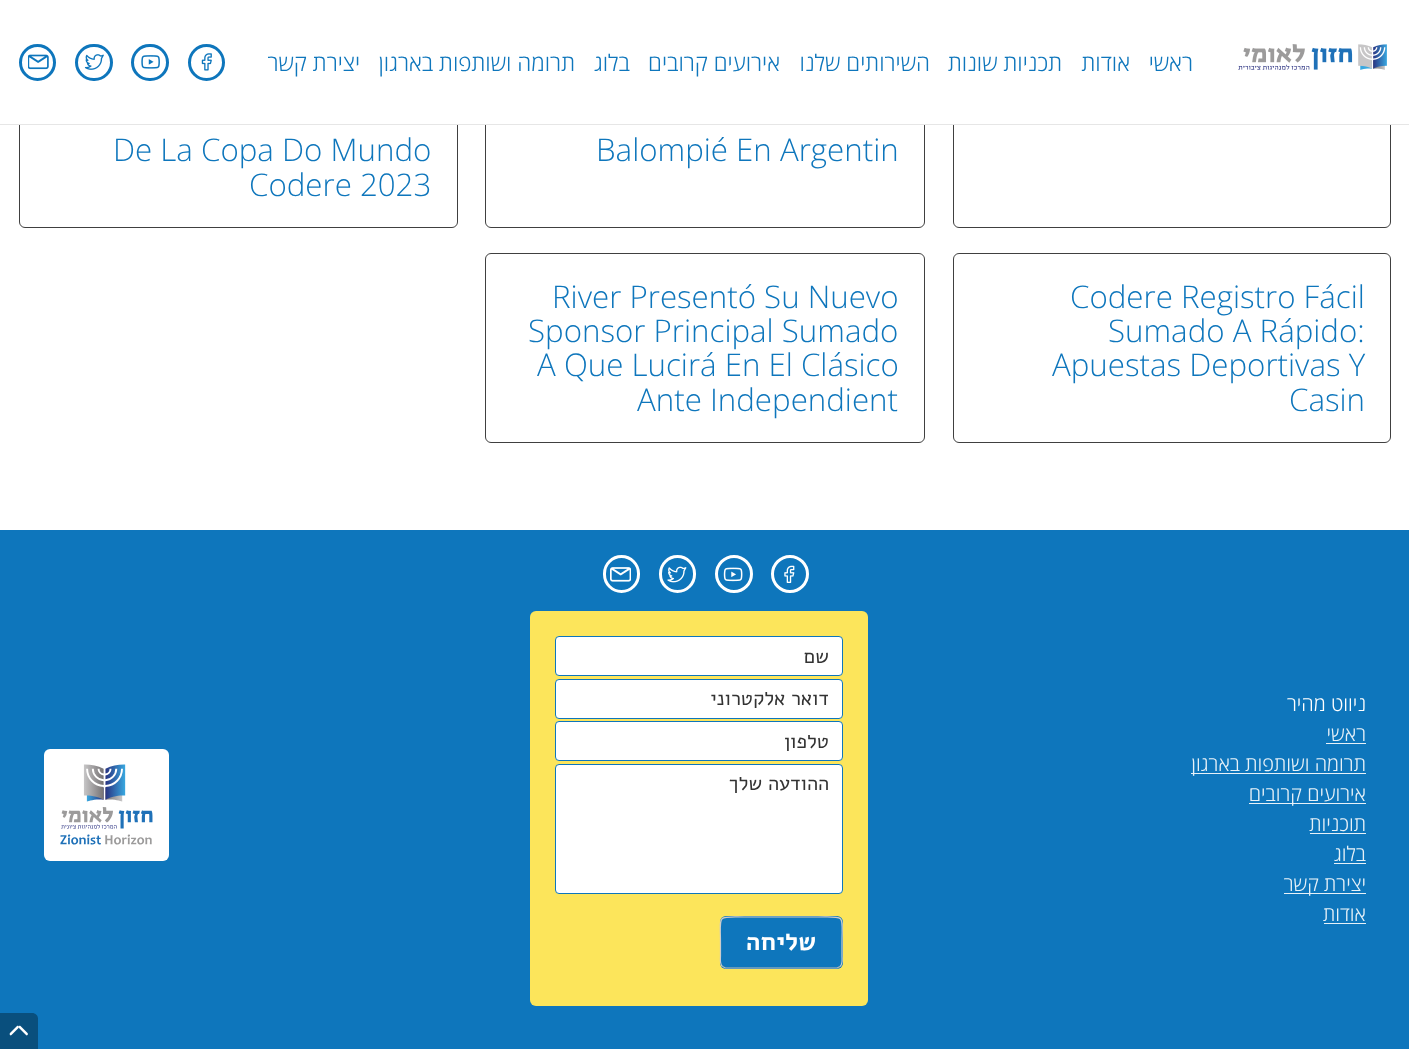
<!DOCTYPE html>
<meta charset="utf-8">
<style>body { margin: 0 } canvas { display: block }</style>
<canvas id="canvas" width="1409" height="1049"></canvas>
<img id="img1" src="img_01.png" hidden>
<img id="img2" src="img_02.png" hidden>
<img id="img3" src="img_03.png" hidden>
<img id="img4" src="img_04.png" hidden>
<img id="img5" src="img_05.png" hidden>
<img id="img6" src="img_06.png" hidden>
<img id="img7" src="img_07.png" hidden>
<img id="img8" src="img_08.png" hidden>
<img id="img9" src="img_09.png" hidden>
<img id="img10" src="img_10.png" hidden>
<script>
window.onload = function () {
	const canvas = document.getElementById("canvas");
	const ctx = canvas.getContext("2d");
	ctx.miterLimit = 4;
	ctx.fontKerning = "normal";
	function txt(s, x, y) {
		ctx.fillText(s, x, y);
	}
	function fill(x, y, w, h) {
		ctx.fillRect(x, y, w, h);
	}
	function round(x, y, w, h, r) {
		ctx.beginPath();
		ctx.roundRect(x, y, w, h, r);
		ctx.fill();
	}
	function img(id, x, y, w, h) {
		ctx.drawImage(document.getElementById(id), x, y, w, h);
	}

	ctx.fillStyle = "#FFFFFF";
	fill(0, 0, 1409, 1049);
	ctx.beginPath();
	ctx.roundRect(19.5, 38.5, 438, 189, 5.5);
	ctx.strokeStyle = "#404040";
	ctx.stroke();
	ctx.beginPath();
	ctx.roundRect(485.5, 38.5, 439, 189, 5.5);
	ctx.stroke();
	ctx.beginPath();
	ctx.roundRect(953.5, 38.5, 437, 189, 5.5);
	ctx.stroke();
	fill(19, 38, 1372, 86);
	ctx.fillStyle = "#E6E6E6";
	fill(0, 124, 1409, 1);
	ctx.beginPath();
	ctx.arc(37.5, 62.5, 17, 0, Math.PI * 2);
	ctx.strokeStyle = "#0E76BC";
	ctx.lineWidth = 3;
	ctx.stroke();
	img("img1", 28, 54, 21, 16);
	ctx.beginPath();
	ctx.roundRect(76.5, 45.5, 35, 34, 17);
	ctx.stroke();
	img("img2", 84, 54, 20, 16);
	ctx.beginPath();
	ctx.roundRect(132.5, 45.5, 35, 34, 17);
	ctx.stroke();
	img("img3", 141, 55, 19, 14);
	ctx.beginPath();
	ctx.arc(206.5, 62.5, 17, 0, Math.PI * 2);
	ctx.stroke();
	img("img4", 201, 53, 11, 18);
	img("img5", 1238, 44, 149, 26);
	ctx.beginPath();
	ctx.roundRect(485.5, 253.5, 439, 189, 5.5);
	ctx.strokeStyle = "#404040";
	ctx.lineWidth = 1;
	ctx.stroke();
	ctx.beginPath();
	ctx.roundRect(953.5, 253.5, 437, 189, 5.5);
	ctx.stroke();
	ctx.fillStyle = "#0E76BC";
	fill(0, 530, 1409, 519);
	ctx.beginPath();
	ctx.roundRect(604.5, 556.5, 34, 35, 17);
	ctx.strokeStyle = "#FFFFFF";
	ctx.lineWidth = 3;
	ctx.stroke();
	img("img6", 610, 567, 21, 15);
	ctx.beginPath();
	ctx.roundRect(660.5, 556.5, 34, 35, 17);
	ctx.stroke();
	img("img7", 667, 566, 20, 17);
	ctx.beginPath();
	ctx.arc(734, 574, 17.5, 0, Math.PI * 2);
	ctx.stroke();
	img("img8", 723, 567, 20, 15);
	ctx.beginPath();
	ctx.arc(790, 574, 17.5, 0, Math.PI * 2);
	ctx.stroke();
	img("img9", 784, 565, 11, 18);
	ctx.fillStyle = "#FFFFFF";
	round(44, 749, 125, 112, 6);
	img("img10", 60, 764, 93, 81);
	ctx.fillStyle = "#FCE55B";
	round(530, 611, 338, 395, 6);
	ctx.fillStyle = "#FFFFFF";
	ctx.beginPath();
	ctx.roundRect(555.5, 636.5, 287, 39, 3.5);
	ctx.fill();
	ctx.strokeStyle = "#0E76BC";
	ctx.lineWidth = 1;
	ctx.stroke();
	ctx.beginPath();
	ctx.roundRect(555.5, 679.5, 287, 39, 3.5);
	ctx.fill();
	ctx.stroke();
	ctx.beginPath();
	ctx.roundRect(555.5, 721.5, 287, 39, 3.5);
	ctx.fill();
	ctx.stroke();
	ctx.beginPath();
	ctx.roundRect(555.5, 764.5, 287, 129, 3.5);
	ctx.fill();
	ctx.stroke();
	ctx.fillStyle = "#0E76BC";
	round(720, 916, 123, 53, 6);
	ctx.beginPath();
	ctx.moveTo(840, 966.5);
	ctx.lineTo(837, 968);
	ctx.lineTo(725.5, 968);
	ctx.lineTo(722.5, 966.5);
	ctx.strokeStyle = "#BBBBBB";
	ctx.lineWidth = 1.2;
	ctx.stroke();
	ctx.beginPath();
	ctx.moveTo(722.5, 966.5);
	ctx.bezierCurveTo(719.5, 964, 720.5, 959, 720.5, 956);
	ctx.lineTo(720.5, 942.5);
	ctx.bezierCurveTo(720.5, 914, 716, 917, 744.5, 917);
	ctx.lineTo(818, 917);
	ctx.bezierCurveTo(846.5, 917, 842, 914, 842, 942.5);
	ctx.lineTo(842, 956);
	ctx.bezierCurveTo(842, 959, 843, 964, 840, 966.5);
	ctx.strokeStyle = "#CCCCCC";
	ctx.stroke();
	ctx.fillStyle = "#E7F1F8";
	fill(1326, 743, 40, 1);
	fill(1191, 773, 175, 1);
	fill(1249, 803, 117, 1);
	fill(1310, 833, 56, 1);
	fill(1334, 863, 32, 1);
	fill(1284, 893, 82, 1);
	fill(1324, 923, 42, 1);
	ctx.fillStyle = "#094F7D";
	ctx.beginPath();
	ctx.moveTo(0, 1013);
	ctx.lineTo(32, 1013);
	ctx.bezierCurveTo(35.5, 1013, 38, 1015.5, 38, 1019);
	ctx.lineTo(38, 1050);
	ctx.lineTo(0, 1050);
	ctx.closePath();
	ctx.fill();
	ctx.fillStyle = "#FFFFFF";
	ctx.beginPath();
	ctx.moveTo(20.5, 1026);
	ctx.lineTo(27.5, 1033);
	ctx.bezierCurveTo(28, 1033.5, 28, 1034.5, 27.5, 1035);
	ctx.bezierCurveTo(27, 1035.5, 26.5, 1035.5, 26, 1035);
	ctx.lineTo(19, 1028);
	ctx.bezierCurveTo(18.5, 1027.5, 18.5, 1026.5, 19, 1026);
	ctx.bezierCurveTo(19.5, 1025.5, 20, 1025.5, 20.5, 1026);
	ctx.closePath();
	ctx.fill();
	ctx.beginPath();
	ctx.moveTo(10, 1033);
	ctx.lineTo(17, 1026);
	ctx.bezierCurveTo(17.5, 1025.5, 18, 1025.5, 18.5, 1026);
	ctx.bezierCurveTo(19, 1026.5, 19, 1027.5, 18.5, 1028);
	ctx.lineTo(11.5, 1035);
	ctx.bezierCurveTo(11, 1035.5, 10.5, 1035.5, 10, 1035);
	ctx.bezierCurveTo(9.5, 1034.5, 9.5, 1033.5, 10, 1033);
	ctx.closePath();
	ctx.fill();
	ctx.direction = "rtl";
	ctx.font = "300 22.5px Open Sans";
	ctx.fillStyle = "#0E76BC";
	txt("יצירת קשר", 360, 71);
	txt("תרומה ושותפות בארגון", 575, 71);
	txt("בלוג", 630, 71);
	txt("אירועים קרובים", 780, 71);
	txt("השירותים שלנו", 930, 71);
	txt("תכניות שונות", 1062, 71);
	txt("אודות", 1130, 71);
	txt("ראשי", 1193, 71);
	ctx.direction = "ltr";
	ctx.font = "300 31.25px Open Sans";
	txt("De La Copa Do Mundo", 113, 161);
	txt("Codere 2023", 249, 196);
	txt("Balompié En Argentin", 596, 161);
	txt("River Presentó Su Nuevo", 552, 308);
	txt("Sponsor Principal Sumado", 528, 342);
	txt("A Que Lucirá En El Clásico", 537, 376);
	txt("Ante Independient", 637, 411);
	txt("Codere Registro Fácil", 1070, 308);
	txt("Sumado A Rápido:", 1108, 342);
	txt("Apuestas Deportivas Y", 1052, 376);
	txt("Casin", 1289, 411);
	ctx.direction = "rtl";
	ctx.font = "20px Alef";
	ctx.fillStyle = "#333333";
	txt("שם", 829, 663);
	txt("דואר אלקטרוני", 829, 705);
	txt("טלפון", 829, 748);
	txt("ההודעה שלך", 829, 790);
	ctx.font = "bold 25px Alef";
	ctx.fillStyle = "#FFFFFF";
	txt("שליחה", 816, 950);
	ctx.font = "300 20px Open Sans";
	txt("ניווט מהיר", 1366, 711);
	ctx.fillStyle = "#E7F1F8";
	txt("ראשי", 1366, 741);
	txt("תרומה ושותפות בארגון", 1366, 771);
	txt("אירועים קרובים", 1366, 801);
	txt("תוכניות", 1366, 831);
	txt("בלוג", 1366, 861);
	txt("יצירת קשר", 1366, 891);
	txt("אודות", 1366, 921);
};
</script>
